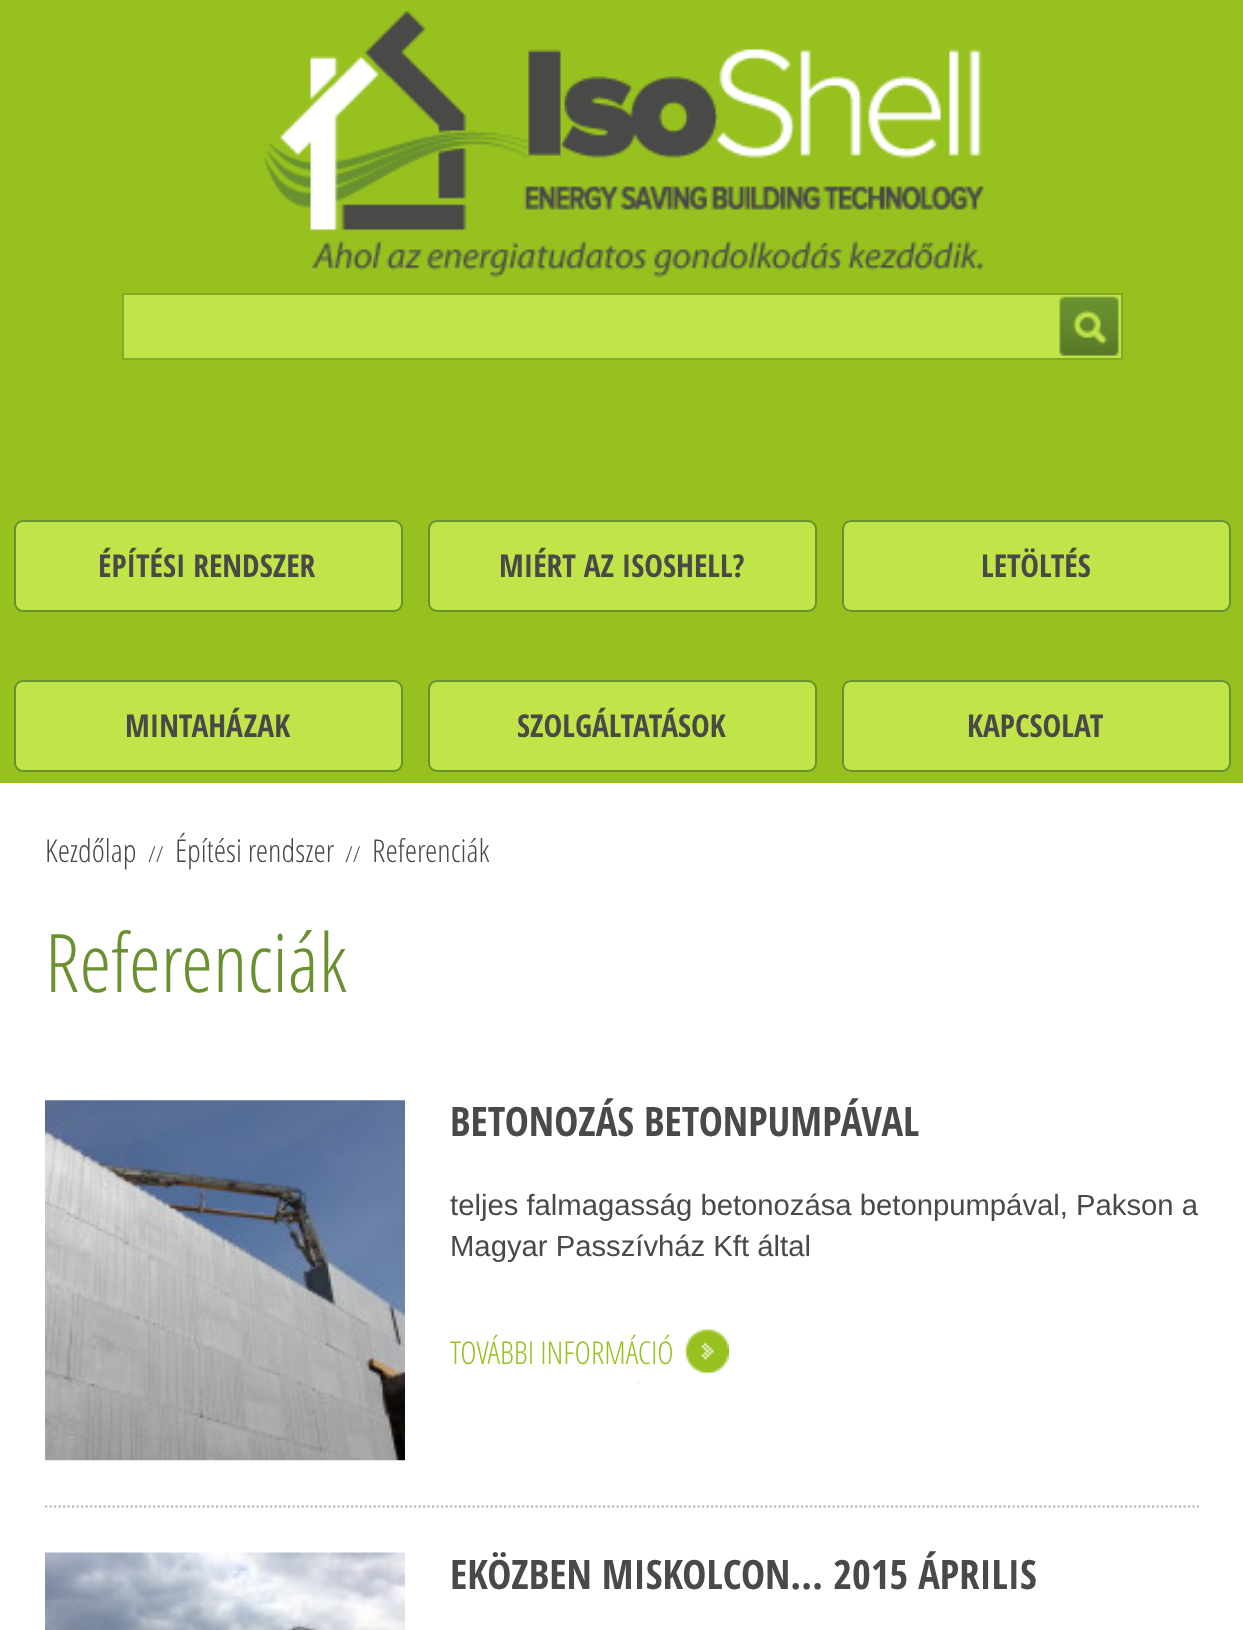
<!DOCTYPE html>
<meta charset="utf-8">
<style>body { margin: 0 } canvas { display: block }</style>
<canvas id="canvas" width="1243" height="1630"></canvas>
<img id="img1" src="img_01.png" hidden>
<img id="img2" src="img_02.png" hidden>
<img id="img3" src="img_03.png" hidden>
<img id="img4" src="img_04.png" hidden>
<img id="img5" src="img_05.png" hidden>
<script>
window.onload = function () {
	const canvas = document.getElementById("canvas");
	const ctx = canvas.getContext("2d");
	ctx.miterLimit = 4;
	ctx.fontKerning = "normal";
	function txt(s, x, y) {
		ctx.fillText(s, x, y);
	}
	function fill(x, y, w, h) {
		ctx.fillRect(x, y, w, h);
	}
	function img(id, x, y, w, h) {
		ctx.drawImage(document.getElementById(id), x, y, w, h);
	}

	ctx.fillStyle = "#96C11F";
	fill(0, 0, 1243, 1630);
	img("img1", 263, 11, 721, 267);
	ctx.fillStyle = "#C1E448";
	fill(124, 295, 997, 63);
	img("img2", 1059, 296, 60, 61);
	ctx.strokeStyle = "#82AB26";
	ctx.lineWidth = 2;
	ctx.strokeRect(123, 294, 999, 65);
	ctx.beginPath();
	ctx.roundRect(15, 521, 387, 90, 8);
	ctx.fill();
	ctx.strokeStyle = "#69912F";
	ctx.stroke();
	ctx.beginPath();
	ctx.roundRect(429, 521, 387, 90, 8);
	ctx.fill();
	ctx.stroke();
	ctx.beginPath();
	ctx.roundRect(843, 521, 387, 90, 8);
	ctx.fill();
	ctx.stroke();
	ctx.beginPath();
	ctx.roundRect(15, 681, 387, 90, 8);
	ctx.fill();
	ctx.stroke();
	ctx.beginPath();
	ctx.roundRect(429, 681, 387, 90, 8);
	ctx.fill();
	ctx.stroke();
	ctx.beginPath();
	ctx.roundRect(843, 681, 387, 90, 8);
	ctx.fill();
	ctx.stroke();
	ctx.fillStyle = "#FFFFFF";
	fill(0, 783, 1243, 847);
	ctx.beginPath();
	ctx.moveTo(45, 1506.5);
	ctx.lineTo(1199, 1506.5);
	ctx.strokeStyle = "#B2B2B2";
	ctx.lineWidth = 2.2;
	ctx.setLineDash([2.25, 2.25]);
	ctx.stroke();
	img("img3", 45, 1100, 360, 361);
	img("img4", 636, 1329, 93, 55);
	img("img5", 45, 1552, 360, 78);
	ctx.font = "bold 31.5px Open Sans Condensed";
	ctx.fillStyle = "#494948";
	txt("ÉPÍTÉSI RENDSZER", 98, 577);
	txt("MIÉRT AZ ISOSHELL?", 499, 577);
	txt("LETÖLTÉS", 981, 577);
	txt("MINTAHÁZAK", 125, 737);
	txt("SZOLGÁLTATÁSOK", 517, 737);
	txt("KAPCSOLAT", 967, 737);
	ctx.font = "300 31.5px Open Sans";
	txt("Kezdőlap", 45, 862);
	ctx.font = "300 22px Open Sans";
	txt("//", 148, 862);
	ctx.font = "300 31.5px Open Sans";
	txt("Építési rendszer", 175, 862);
	ctx.font = "300 22px Open Sans";
	txt("//", 345, 862);
	ctx.font = "300 31.5px Open Sans";
	txt("Referenciák", 372, 862);
	ctx.font = "300 81px Open Sans";
	ctx.fillStyle = "#69912F";
	txt("Referenciák", 45, 992);
	ctx.font = "bold 40.5px Open Sans Condensed";
	ctx.fillStyle = "#494948";
	txt("BETONOZÁS BETONPUMPÁVAL", 450, 1136);
	ctx.font = "29.25px Liberation Sans";
	txt("teljes falmagasság betonozása betonpumpával, Pakson a", 450, 1215);
	txt("Magyar Passzívház Kft által", 450, 1256);
	ctx.font = "300 31.5px Open Sans";
	ctx.fillStyle = "#96C11F";
	txt("TOVÁBBI INFORMÁCIÓ", 450, 1364);
	ctx.font = "bold 40.5px Open Sans Condensed";
	ctx.fillStyle = "#494948";
	txt("EKÖZBEN MISKOLCON… 2015 ÁPRILIS", 450, 1589);
};
</script>
